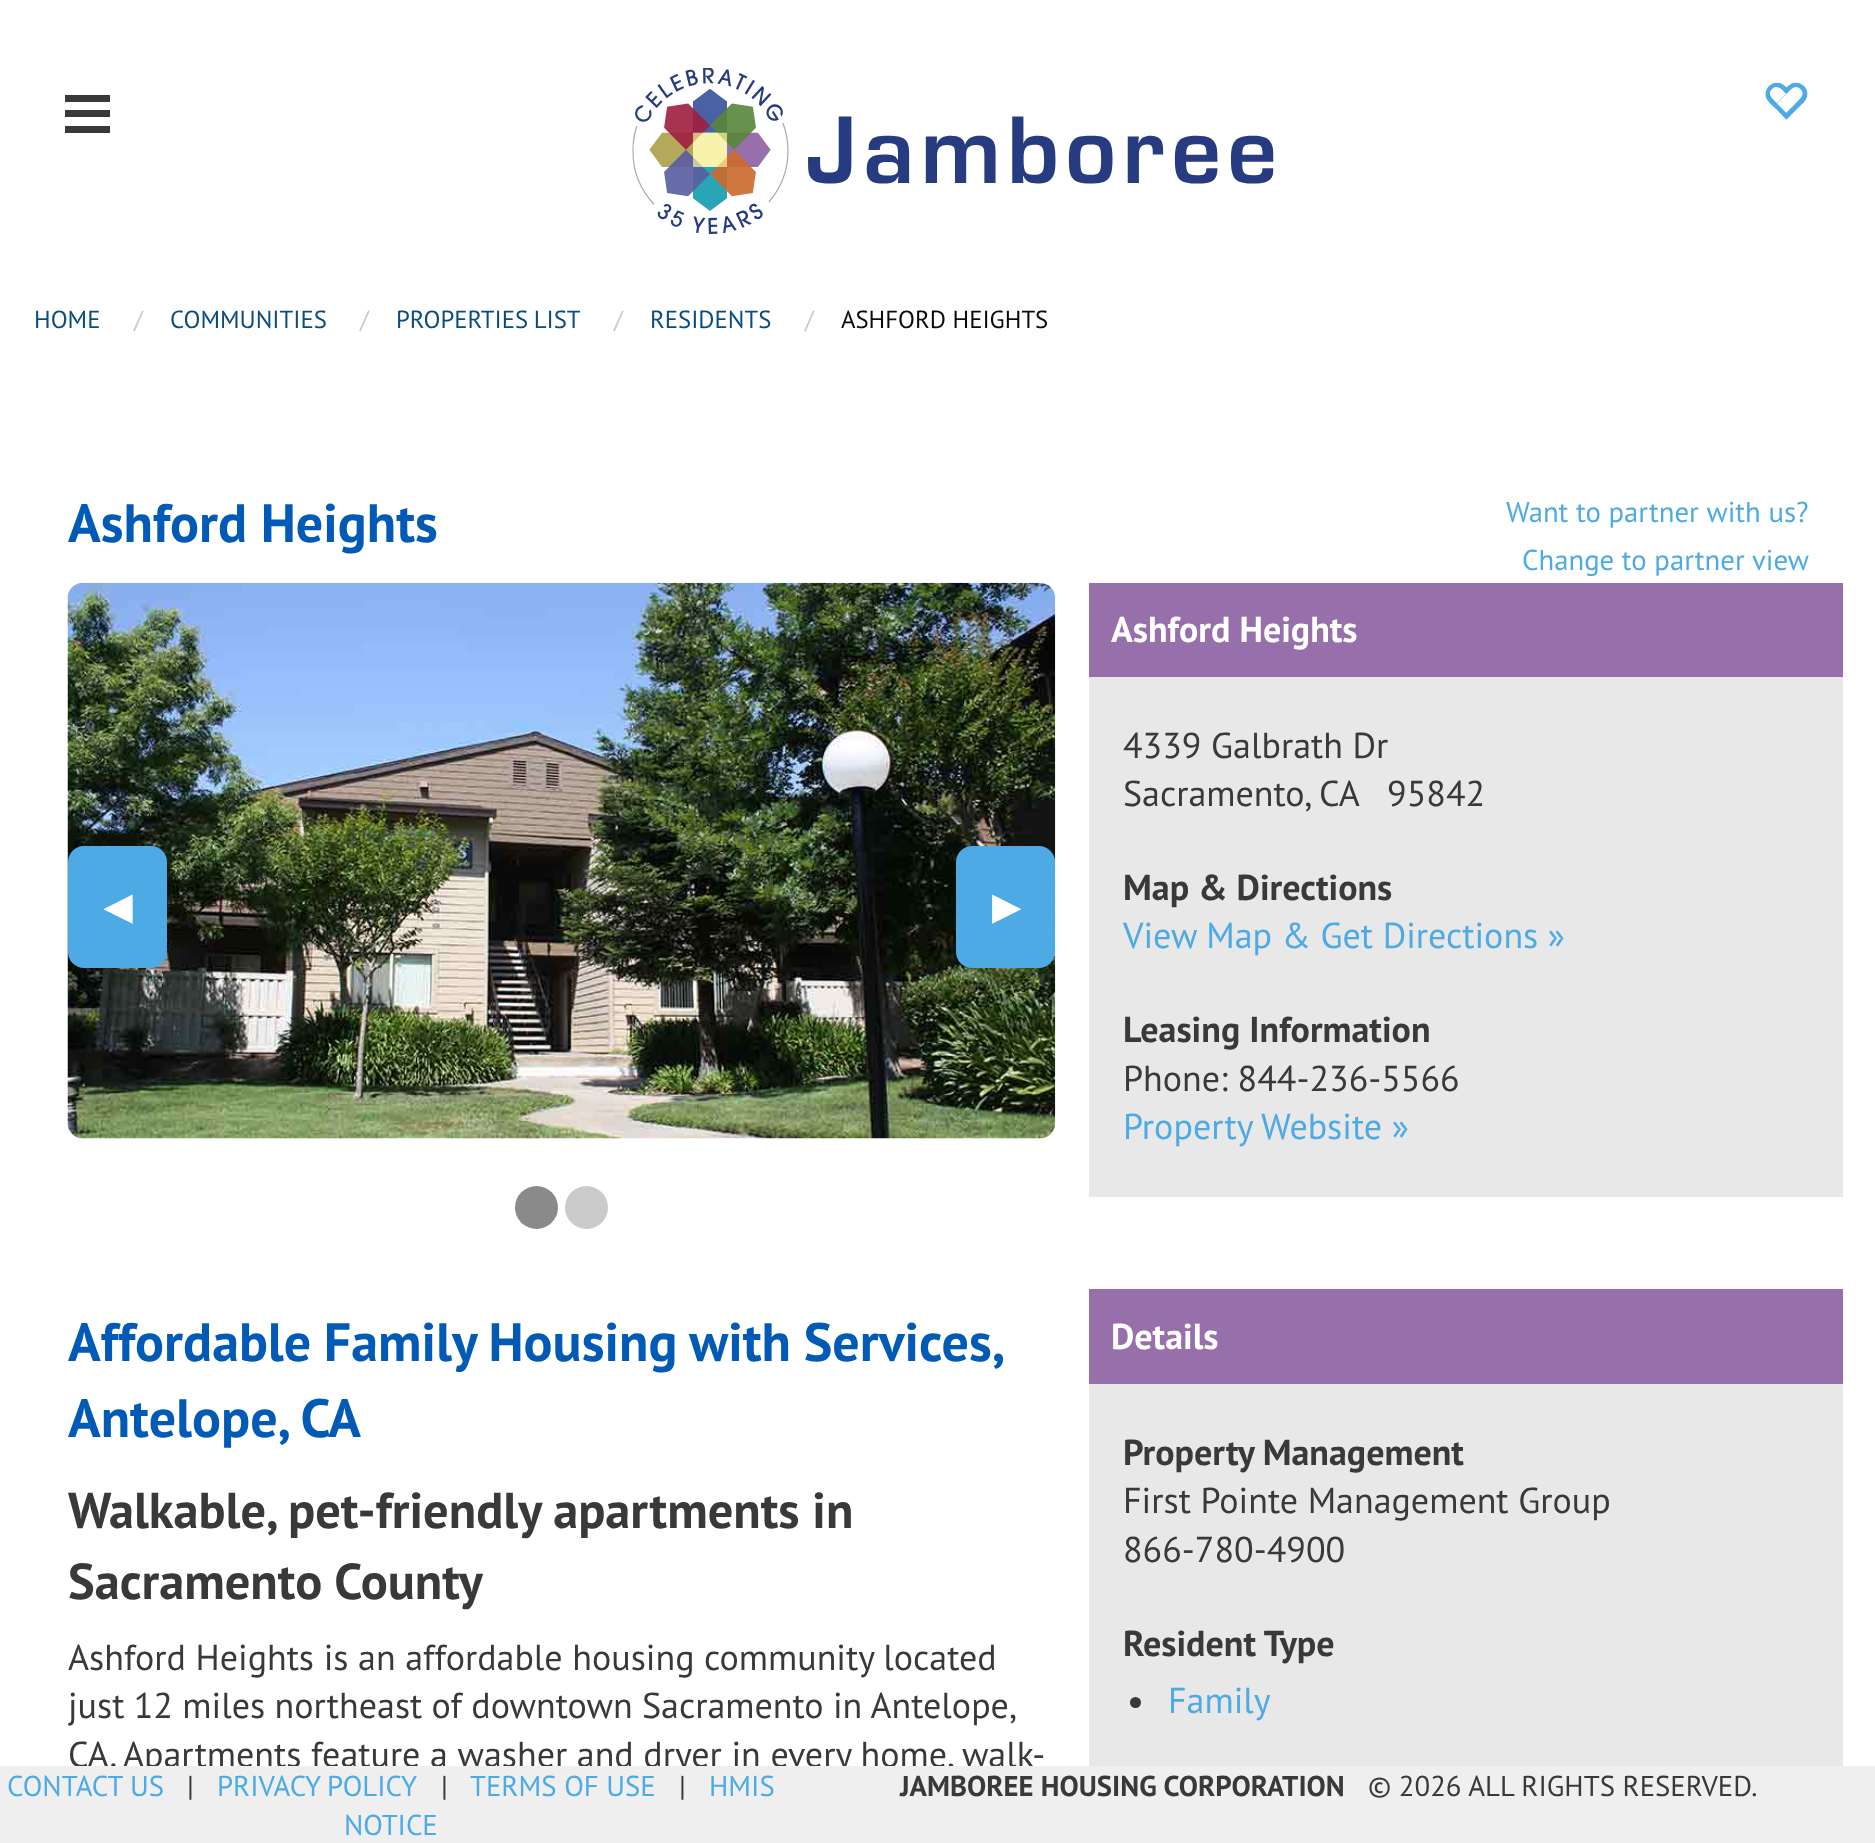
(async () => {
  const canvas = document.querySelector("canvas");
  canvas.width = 1875;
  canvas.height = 1843;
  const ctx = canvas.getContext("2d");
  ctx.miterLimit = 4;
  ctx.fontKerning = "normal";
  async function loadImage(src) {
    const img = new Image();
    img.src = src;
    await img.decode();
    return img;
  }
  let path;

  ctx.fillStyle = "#ffffff";
  ctx.fillRect(0, 0, 1875, 1843);
  for (const [x, y, w, h, color] of [
    [65, 126, 45, 7, "#393939"],
    [65, 110, 45, 7, "#393939"],
    [65, 95, 45, 7, "#393939"],
  ]) {
    ctx.fillStyle = color;
    ctx.fillRect(x, y, w, h);
  }
  ctx.drawImage(await loadImage("img/1.png"), 632, 68, 642, 166);
  ctx.fillStyle = "#4daae4";
  path = new Path2D("M1769 86C1773.5 81.5 1780.5 81.5 1785 86L1789.5 90.5L1773.5 106.5L1769 102C1764.5 97.5 1764.5 90.5 1769 86ZM1772 89C1777.5 83.5 1782.5 90 1786.5 94L1777 103.5C1773 99.5 1766.5 94.5 1772 89Z");
  ctx.fill(path, "evenodd");
  path = new Path2D("M1783 116L1800.5 98.5L1804 102L1786.5 119.5Z");
  ctx.fill(path);
  path = new Path2D("M1769 102L1772 98.5L1789.5 116L1786.5 119.5Z");
  ctx.fill(path);
  path = new Path2D("M1804 86C1808.5 90.5 1808.5 97.5 1804 102L1799 106.5L1783 90.5L1788 86C1792.5 81.5 1799.5 81.5 1804 86ZM1800.5 89C1806 94.5 1799.5 99.5 1796 103.5L1786.5 94C1790 90 1795 83.5 1800.5 89Z");
  ctx.fill(path, "evenodd");
  ctx.drawImage(await loadImage("img/2.png"), 67, 582, 989, 557);
  ctx.beginPath();
  ctx.roundRect(68, 846, 99, 122, 16);
  ctx.fill();
  ctx.beginPath();
  ctx.roundRect(956, 846, 99, 122, 16);
  ctx.fill();
  ctx.fillStyle = "#8a8a8a";
  ctx.beginPath();
  ctx.arc(536.5, 1207.5, 21.5, 0, Math.PI * 2);
  ctx.fill();
  ctx.fillStyle = "#cacaca";
  ctx.beginPath();
  ctx.arc(586.5, 1207.5, 21.5, 0, Math.PI * 2);
  ctx.fill();
  for (const [x, y, w, h, color] of [
    [1089, 677, 754, 1089, "#e8e8e8"],
    [1089, 583, 754, 94, "#966fab"],
    [1089, 1197, 754, 92, "#ffffff"],
    [1089, 1289, 754, 95, "#966fab"],
  ]) {
    ctx.fillStyle = color;
    ctx.fillRect(x, y, w, h);
  }
  ctx.fillStyle = "#393939";
  ctx.beginPath();
  ctx.arc(1135.5, 1702.5, 5.5, 0, Math.PI * 2);
  ctx.fill();
  ctx.fillStyle = "#efefef";
  ctx.fillRect(0, 1766, 1875, 77);
  ctx.font = "24.75px PT Sans";
  ctx.fillStyle = "#094c80";
  ctx.fillText("HOME", 34, 328);
  ctx.fillStyle = "#cacaca";
  ctx.fillText("/", 134, 328);
  ctx.fillStyle = "#094c80";
  ctx.fillText("COMMUNITIES", 170, 328);
  ctx.fillStyle = "#cacaca";
  ctx.fillText("/", 360, 328);
  ctx.wordSpacing = "-1px";
  ctx.fillStyle = "#094c80";
  ctx.fillText("PROPERTIES LIST", 396, 328);
  ctx.wordSpacing = "0px";
  ctx.fillStyle = "#cacaca";
  ctx.fillText("/", 614, 328);
  ctx.fillStyle = "#094c80";
  ctx.fillText("RESIDENTS", 650, 328);
  ctx.fillStyle = "#cacaca";
  ctx.fillText("/", 805, 328);
  ctx.fillStyle = "#0a0a0a";
  ctx.fillText("ASHFORD HEIGHTS", 841, 328);
  ctx.font = "bold 54px PT Sans";
  ctx.fillStyle = "#015bb6";
  ctx.fillText("Ashford Heights", 68, 542);
  ctx.font = "28.75px PT Sans";
  ctx.fillStyle = "#4daae4";
  ctx.fillText("Want to partner with us?", 1506, 522);
  ctx.fillText("Change to partner view", 1522, 570);
  ctx.font = "bold 36px DejaVu Sans";
  ctx.fillStyle = "#ffffff";
  ctx.fillText("◀︎", 104, 919);
  ctx.fillText("▶︎", 992, 919);
  ctx.wordSpacing = "-1px";
  ctx.font = "bold 54px PT Sans";
  ctx.fillStyle = "#015bb6";
  ctx.fillText("Affordable Family Housing with Services,", 68, 1361);
  ctx.wordSpacing = "0px";
  ctx.fillText("Antelope, CA", 68, 1437);
  ctx.font = "bold 50.4px PT Sans";
  ctx.fillStyle = "#393939";
  ctx.fillText("Walkable, pet-friendly apartments in", 68, 1528);
  ctx.fillText("Sacramento County", 68, 1599);
  ctx.font = "36px PT Sans";
  ctx.fillText("Ashford Heights is an affordable housing community located", 68, 1670);
  ctx.wordSpacing = "-0.25px";
  ctx.fillText("just 12 miles northeast of downtown Sacramento in Antelope,", 68, 1718);
  ctx.save();
  ctx.beginPath();
  ctx.rect(0, 302, 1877, 1464);
  ctx.clip();
  ctx.wordSpacing = "0px";
  ctx.fillText("CA. Apartments feature a washer and dryer in every home, walk-", 68, 1767);
  ctx.restore();
  ctx.wordSpacing = "0px";
  ctx.font = "bold 36px PT Sans";
  ctx.fillStyle = "#ffffff";
  ctx.fillText("Ashford Heights", 1111, 642);
  ctx.font = "36px PT Sans";
  ctx.fillStyle = "#393939";
  ctx.fillText("4339 Galbrath Dr", 1123, 758);
  ctx.fillText("Sacramento, CA   95842", 1123, 806);
  ctx.font = "bold 36px PT Sans";
  ctx.fillText("Map & Directions", 1123, 900);
  ctx.font = "36px PT Sans";
  ctx.fillStyle = "#4daae4";
  ctx.fillText("View Map & Get Directions »", 1123, 948);
  ctx.font = "bold 36px PT Sans";
  ctx.fillStyle = "#393939";
  ctx.fillText("Leasing Information", 1123, 1042);
  ctx.font = "36px PT Sans";
  ctx.fillText("Phone: 844-236-5566", 1123, 1091);
  ctx.fillStyle = "#4daae4";
  ctx.fillText("Property Website »", 1123, 1139);
  ctx.font = "bold 36px PT Sans";
  ctx.fillStyle = "#ffffff";
  ctx.fillText("Details", 1111, 1349);
  ctx.fillStyle = "#393939";
  ctx.fillText("Property Management", 1123, 1465);
  ctx.font = "36px PT Sans";
  ctx.fillText("First Pointe Management Group", 1123, 1513);
  ctx.fillText("866-780-4900", 1123, 1562);
  ctx.font = "bold 36px PT Sans";
  ctx.fillText("Resident Type", 1123, 1656);
  ctx.font = "36px PT Sans";
  ctx.fillStyle = "#4daae4";
  ctx.fillText("Family", 1168, 1713);
  ctx.font = "28.75px PT Sans";
  ctx.fillText("CONTACT US", 7, 1796);
  ctx.fillStyle = "#393939";
  ctx.fillText("|", 187, 1796);
  ctx.wordSpacing = "-1px";
  ctx.fillStyle = "#4daae4";
  ctx.fillText("PRIVACY POLICY", 217, 1796);
  ctx.wordSpacing = "0px";
  ctx.fillStyle = "#393939";
  ctx.fillText("|", 441, 1796);
  ctx.fillStyle = "#4daae4";
  ctx.fillText("TERMS OF USE", 470, 1796);
  ctx.fillStyle = "#393939";
  ctx.fillText("|", 679, 1796);
  ctx.fillStyle = "#4daae4";
  ctx.fillText("HMIS", 709, 1796);
  ctx.fillText("NOTICE", 344, 1835);
  ctx.font = "bold 28.75px PT Sans";
  ctx.fillStyle = "#393939";
  ctx.fillText("JAMBOREE HOUSING CORPORATION", 900, 1796);
  ctx.font = "28.75px PT Sans";
  ctx.fillText("© 2026 ALL RIGHTS RESERVED.", 1368, 1796);
})();
